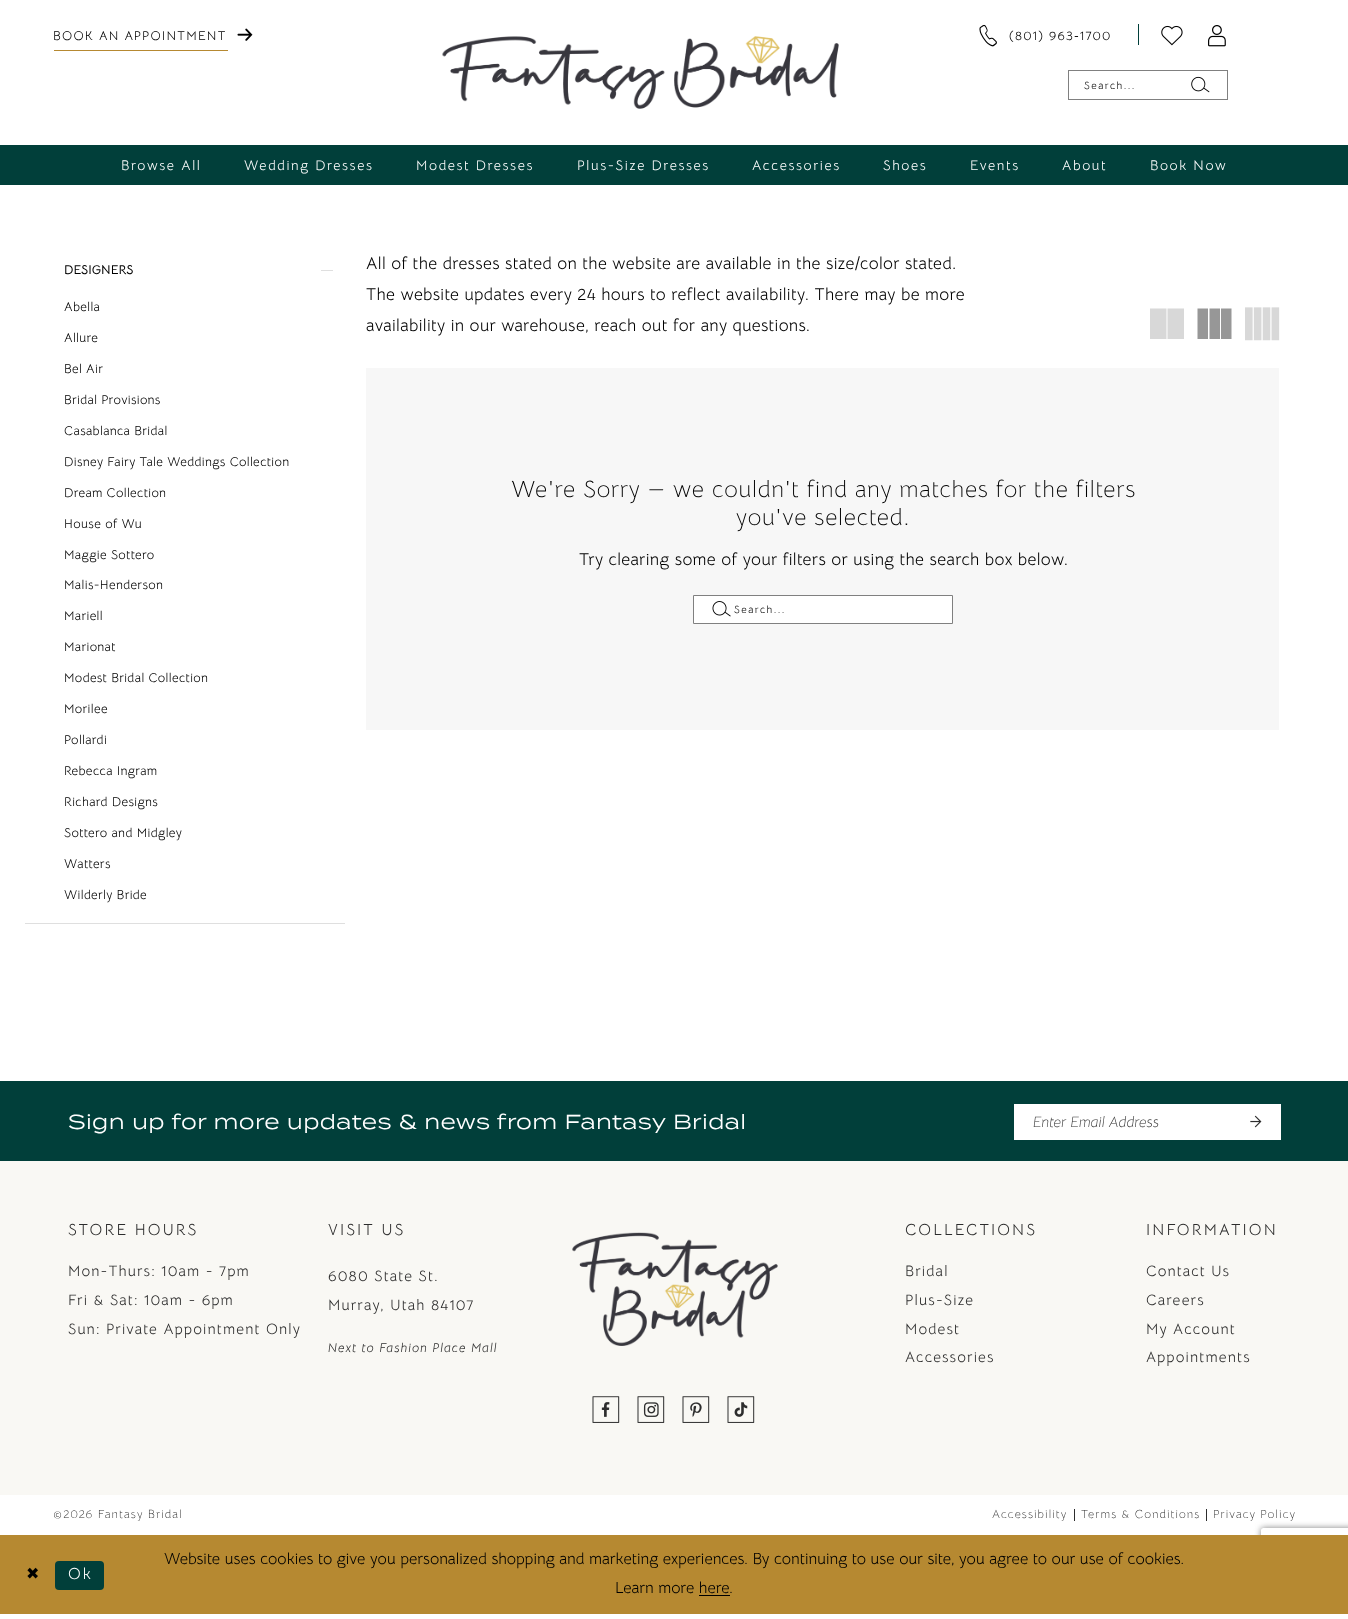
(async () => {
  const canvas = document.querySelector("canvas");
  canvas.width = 1348;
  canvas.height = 1619;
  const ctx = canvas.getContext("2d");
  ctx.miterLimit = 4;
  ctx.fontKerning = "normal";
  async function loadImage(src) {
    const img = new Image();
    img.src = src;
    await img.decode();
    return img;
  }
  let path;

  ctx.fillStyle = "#ffffff";
  ctx.fillRect(0, 0, 1348, 1619);
  ctx.fillStyle = "#b68931";
  ctx.fillRect(54, 50, 174, 1);
  ctx.drawImage(await loadImage("img/1.png"), 237, 28, 16, 13);
  ctx.drawImage(await loadImage("img/2.png"), 442, 36, 397, 73);
  ctx.drawImage(await loadImage("img/3.png"), 979, 24, 18, 23);
  ctx.fillStyle = "#013f3a";
  ctx.fillRect(1138, 24, 1, 21);
  ctx.drawImage(await loadImage("img/4.png"), 1161, 25, 22, 21);
  ctx.drawImage(await loadImage("img/5.png"), 1208, 25, 18, 22);
  ctx.strokeStyle = "#808080";
  ctx.strokeRect(1068.5, 70.5, 159, 29);
  ctx.drawImage(await loadImage("img/6.png"), 1191, 76, 19, 17);
  for (const [x, y, w, h, color] of [
    [0, 145, 1348, 40, "#013f3a"],
    [25, 923, 320, 1, "#dfdfdf"],
    [321, 270, 12, 1, "#dfdfdf"],
  ]) {
    ctx.fillStyle = color;
    ctx.fillRect(x, y, w, h);
  }
  ctx.fillStyle = "#d8d8d8";
  path = new Path2D("M1150 308.5H1166.5V339H1150ZM1167.5 308.5H1184V339H1167.5Z");
  ctx.fill(path);
  ctx.fillStyle = "#979797";
  path = new Path2D("M1197.5 308.5H1208V339H1197.5ZM1221 308.5H1231.5V339H1221ZM1209.5 308.5H1220V339H1209.5Z");
  ctx.fill(path);
  ctx.drawImage(await loadImage("img/7.png"), 1245, 307, 35, 34);
  ctx.fillStyle = "#f7f7f7";
  ctx.fillRect(366, 368, 913, 362);
  ctx.fillStyle = "#ffffff";
  ctx.beginPath();
  ctx.rect(693.5, 595.5, 259, 28);
  ctx.fill();
  ctx.stroke();
  ctx.drawImage(await loadImage("img/8.png"), 712, 601, 19, 16);
  ctx.fillStyle = "#013f3a";
  ctx.fillRect(0, 1081, 1348, 80);
  ctx.fillStyle = "#ffffff";
  ctx.fillRect(1014, 1104, 267, 36);
  ctx.drawImage(await loadImage("img/9.png"), 1250, 1115, 12, 13);
  ctx.fillStyle = "#f9f8f4";
  ctx.fillRect(0, 1161, 1348, 334);
  ctx.drawImage(await loadImage("img/10.png"), 572, 1232, 206, 114);
  ctx.drawImage(await loadImage("img/11.png"), 592, 1396, 28, 27);
  ctx.drawImage(await loadImage("img/12.png"), 637, 1396, 28, 27);
  ctx.drawImage(await loadImage("img/13.png"), 682, 1396, 28, 27);
  ctx.drawImage(await loadImage("img/14.png"), 727, 1396, 28, 27);
  ctx.fillStyle = "#2d2d2d";
  ctx.fillRect(1074, 1509, 1, 12);
  ctx.fillRect(1206, 1509, 1, 12);
  ctx.save();
  path = new Path2D("M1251 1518H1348V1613H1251ZM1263.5 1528H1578.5C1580 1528 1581 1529 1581 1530.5V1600.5C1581 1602 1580 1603 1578.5 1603H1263.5C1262 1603 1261 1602 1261 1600.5V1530.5C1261 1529 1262 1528 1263.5 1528Z");
  ctx.clip(path, "evenodd");
  ctx.fillStyle = "#808080";
  ctx.filter = "blur(3px)";
  ctx.beginPath();
  ctx.roundRect(1261, 1528, 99, 75, 2.5);
  ctx.fill();
  ctx.filter = "none";
  ctx.restore();
  ctx.fillStyle = "#b68931";
  ctx.fillRect(0, 1535, 1348, 79);
  ctx.fillStyle = "#013f3a";
  ctx.beginPath();
  ctx.roundRect(55, 1561, 49, 29, 4);
  ctx.fill();
  ctx.fillStyle = "#000000";
  ctx.fillRect(699, 1595, 31, 1);
  ctx.letterSpacing = "1.25px";
  ctx.font = "12.8px Bellota Text";
  ctx.fillText("BOOK AN APPOINTMENT", 53, 40);
  ctx.fillText("(801) 963‑1700", 1009, 40);
  ctx.letterSpacing = "1.5px";
  ctx.font = "10.5px Bellota Text";
  ctx.fillText("Search...", 1084, 89);
  ctx.letterSpacing = "1.6px";
  ctx.font = "13.9px Bellota Text";
  ctx.fillStyle = "#ffffff";
  for (const [text, x, y] of [
    ["Browse All", 121, 170],
    ["Wedding Dresses", 244, 170],
    ["Modest Dresses", 416, 170],
    ["Plus-Size Dresses", 577, 170],
    ["Accessories", 752, 170],
    ["Shoes", 883, 170],
    ["Events", 970, 170],
    ["About", 1062, 170],
    ["Book Now", 1150, 170],
  ]) {
    ctx.fillText(text, x, y);
  }
  ctx.letterSpacing = "0px";
  ctx.font = "bold 12.8px Bellota Text";
  ctx.fillStyle = "#000000";
  ctx.fillText("DESIGNERS", 64, 274);
  ctx.letterSpacing = "0.35px";
  ctx.font = "12.8px Bellota Text";
  for (const [text, x, y] of [
    ["Abella", 64, 311],
    ["Allure", 64, 342],
    ["Bel Air", 64, 373],
    ["Bridal Provisions", 64, 404],
    ["Casablanca Bridal", 64, 435],
    ["Disney Fairy Tale Weddings Collection", 64, 466],
    ["Dream Collection", 64, 497],
    ["House of Wu", 64, 528],
    ["Maggie Sottero", 64, 559],
    ["Malis-Henderson", 64, 589],
    ["Mariell", 64, 620],
    ["Marionat", 64, 651],
    ["Modest Bridal Collection", 64, 682],
    ["Morilee", 64, 713],
    ["Pollardi", 64, 744],
    ["Rebecca Ingram", 64, 775],
    ["Richard Designs", 64, 806],
    ["Sottero and Midgley", 64, 837],
    ["Watters", 64, 868],
    ["Wilderly Bride", 64, 899],
  ]) {
    ctx.fillText(text, x, y);
  }
  ctx.font = "17.1px Bellota Text";
  for (const [text, x, y] of [
    ["All of the dresses stated on the website are available in the size/color stated.", 366, 269],
    ["The website updates every 24 hours to reflect availability. There may be more", 366, 300],
    ["availability in our warehouse, reach out for any questions.", 366, 331],
  ]) {
    ctx.fillText(text, x, y);
  }
  ctx.letterSpacing = "0.75px";
  ctx.font = "300 23.5px Bellota Text";
  ctx.fillText("We're Sorry — we couldn't find any matches for the filters", 511, 497);
  ctx.fillText("you've selected.", 736, 525);
  ctx.letterSpacing = "0.35px";
  ctx.font = "17.1px Bellota Text";
  ctx.fillText("Try clearing some of your filters or using the search box below.", 579, 565);
  ctx.letterSpacing = "1.5px";
  ctx.font = "10.5px Bellota Text";
  ctx.fillText("Search...", 734, 613);
  ctx.letterSpacing = "0.4px";
  ctx.font = "20.3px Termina";
  ctx.fillStyle = "#ffffff";
  ctx.fillText("Sign up for more updates & news from Fantasy Bridal", 68, 1129);
  ctx.letterSpacing = "0px";
  ctx.font = "italic 300 15px Bellota Text";
  ctx.fillStyle = "#2d2d2d";
  ctx.fillText("Enter Email Address", 1033, 1127);
  ctx.letterSpacing = "2.1px";
  ctx.font = "16px Bellota Text";
  ctx.fillText("STORE HOURS", 68, 1235);
  ctx.letterSpacing = "1.15px";
  ctx.font = "15px Bellota Text";
  for (const [text, x, y] of [
    ["Mon-Thurs: 10am - 7pm", 68, 1276],
    ["Fri & Sat: 10am - 6pm", 68, 1305],
    ["Sun: Private Appointment Only", 68, 1334],
  ]) {
    ctx.fillText(text, x, y);
  }
  ctx.letterSpacing = "2.1px";
  ctx.font = "16px Bellota Text";
  ctx.fillText("VISIT US", 328, 1235);
  ctx.letterSpacing = "1.15px";
  ctx.font = "15px Bellota Text";
  ctx.fillText("6080 State St.", 328, 1281);
  ctx.fillText("Murray, Utah 84107", 328, 1310);
  ctx.letterSpacing = "1px";
  ctx.font = "italic 12.8px Bellota Text";
  ctx.fillText("Next to Fashion Place Mall", 328, 1352);
  ctx.letterSpacing = "2.1px";
  ctx.font = "16px Bellota Text";
  ctx.fillText("COLLECTIONS", 905, 1235);
  ctx.letterSpacing = "1.15px";
  ctx.font = "15px Bellota Text";
  for (const [text, x, y] of [
    ["Bridal", 905, 1276],
    ["Plus-Size", 905, 1305],
    ["Modest", 905, 1334],
    ["Accessories", 905, 1362],
  ]) {
    ctx.fillText(text, x, y);
  }
  ctx.letterSpacing = "2.1px";
  ctx.font = "16px Bellota Text";
  ctx.fillText("INFORMATION", 1146, 1235);
  ctx.letterSpacing = "1.15px";
  ctx.font = "15px Bellota Text";
  for (const [text, x, y] of [
    ["Contact Us", 1146, 1276],
    ["Careers", 1146, 1305],
    ["My Account", 1146, 1334],
    ["Appointments", 1146, 1362],
  ]) {
    ctx.fillText(text, x, y);
  }
  ctx.letterSpacing = "1.1px";
  ctx.font = "300 11.75px Bellota Text";
  for (const [text, x, y] of [
    ["©2026 Fantasy Bridal", 53, 1518],
    ["Accessibility", 992, 1518],
    ["Terms & Conditions", 1081, 1518],
    ["Privacy Policy", 1213, 1518],
  ]) {
    ctx.fillText(text, x, y);
  }
  ctx.letterSpacing = "2px";
  ctx.font = "16px DejaVu Sans";
  ctx.fillStyle = "#000000";
  ctx.fillText("✖", 26, 1579);
  ctx.font = "16px Bellota Text";
  ctx.fillStyle = "#ffffff";
  ctx.fillText("Ok", 68, 1579);
  ctx.letterSpacing = "0px";
  ctx.fillStyle = "#000000";
  for (const [text, x, y] of [
    ["Website uses cookies to give you personalized shopping and marketing experiences. By continuing to use our site, you agree to our use of cookies.", 164, 1564],
    ["Learn more here", 615, 1593],
    [".", 729, 1593],
  ]) {
    ctx.fillText(text, x, y);
  }
})();
